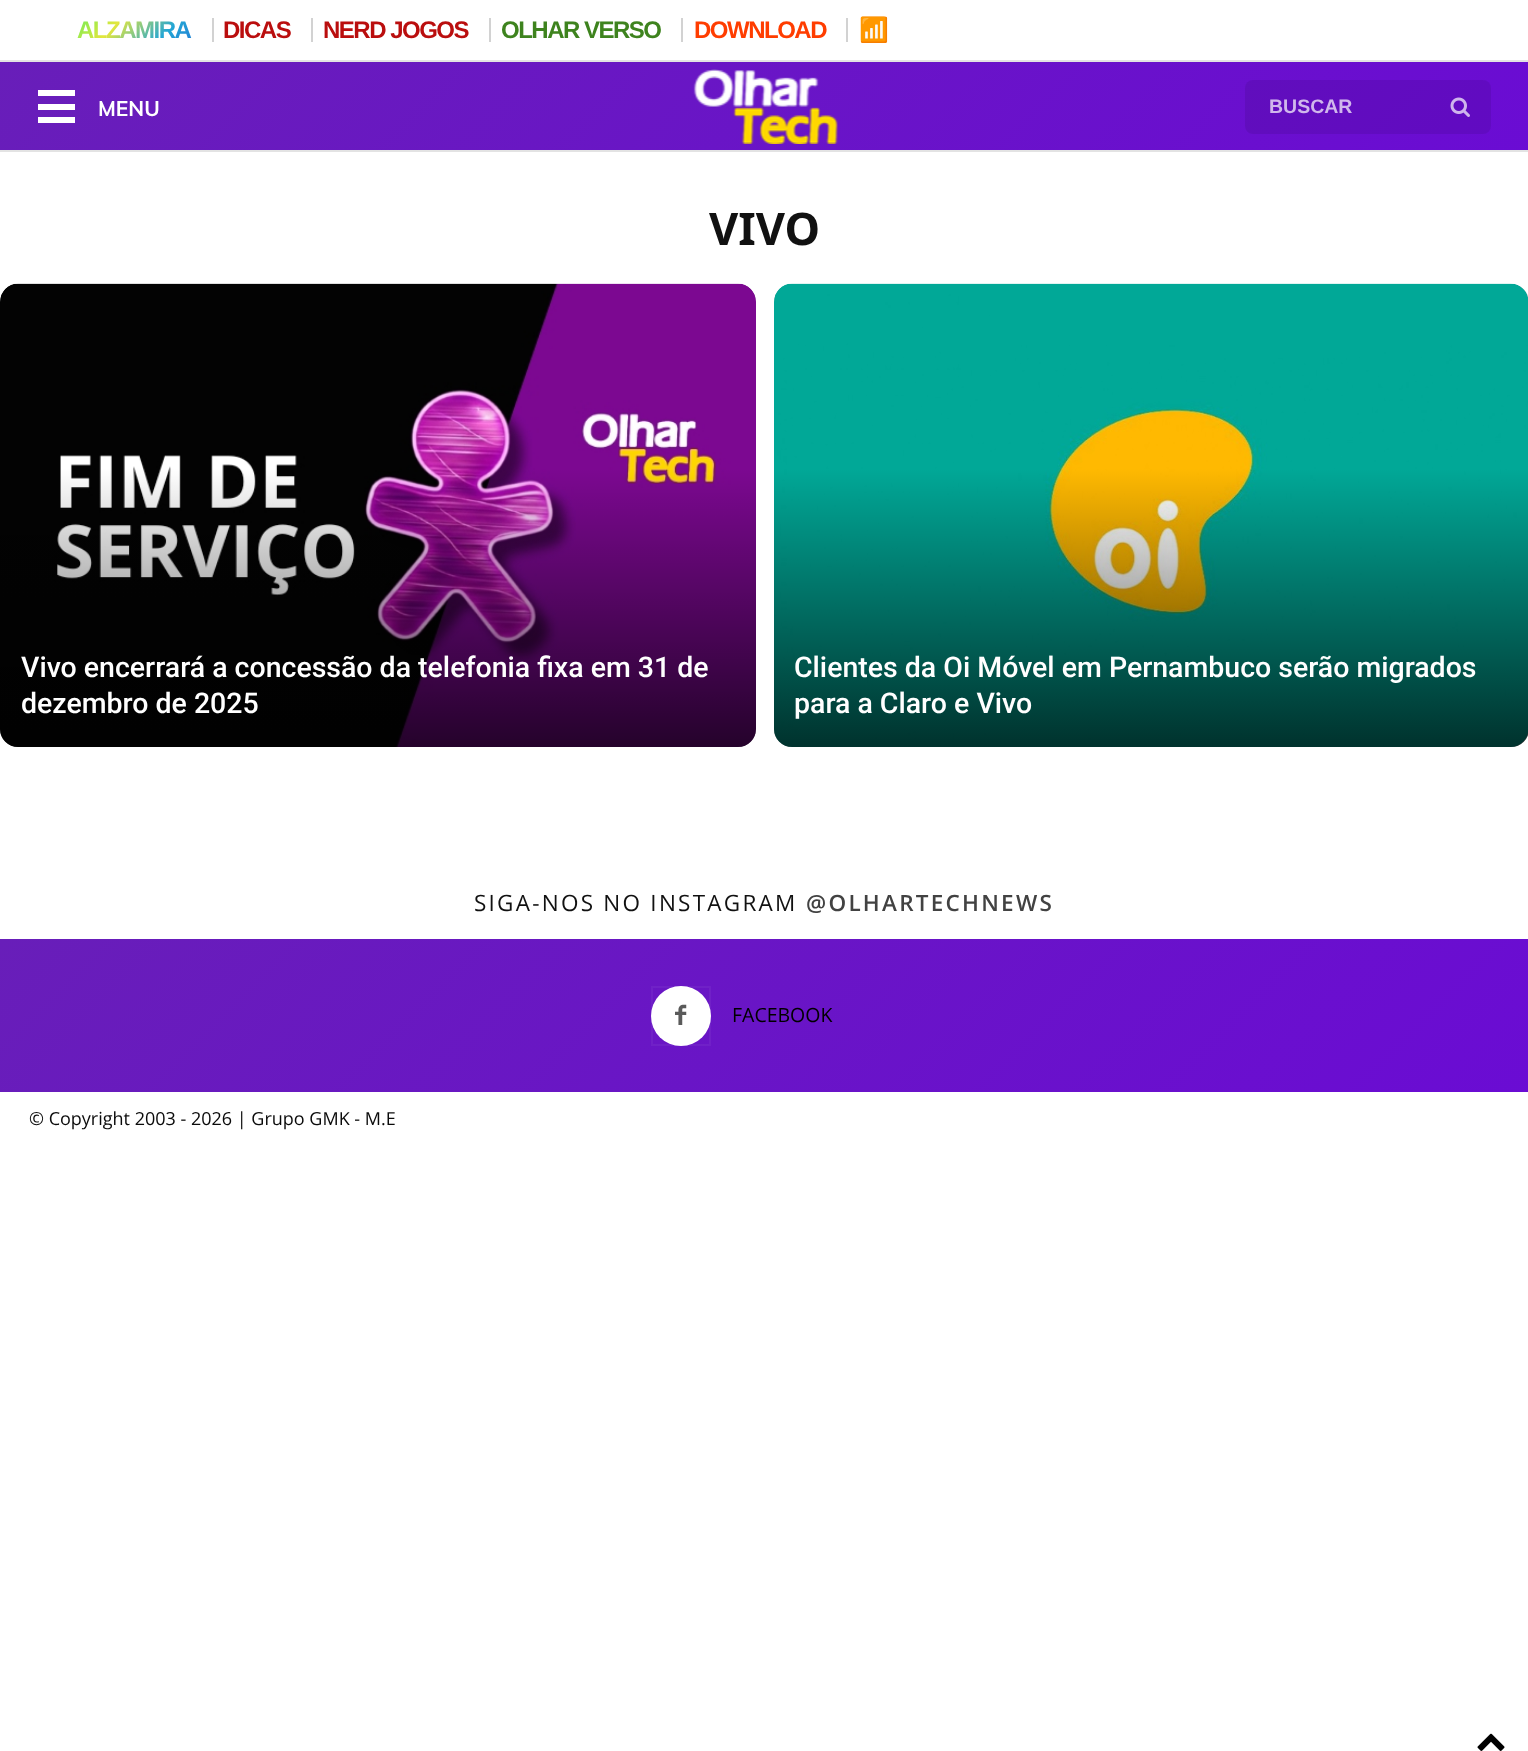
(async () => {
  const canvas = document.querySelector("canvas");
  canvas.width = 1528;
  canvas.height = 1751;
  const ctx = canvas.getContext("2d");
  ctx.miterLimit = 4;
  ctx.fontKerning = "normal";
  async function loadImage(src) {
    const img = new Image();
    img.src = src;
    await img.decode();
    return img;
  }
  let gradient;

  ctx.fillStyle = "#ffffff";
  ctx.fillRect(0, 0, 1528, 1751);
  for (const [x, y, w, h, color] of [
    [212, 18, 2, 24, "#d2d2d2"],
    [311, 18, 2, 24, "#d2d2d2"],
    [489, 18, 2, 24, "#d2d2d2"],
    [681, 18, 2, 24, "#d2d2d2"],
    [846, 18, 2, 24, "#d2d2d2"],
  ]) {
    ctx.fillStyle = color;
    ctx.fillRect(x, y, w, h);
  }
  gradient = ctx.createLinearGradient(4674, 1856, 1440, -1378);
  gradient.addColorStop(0, "#540ba3");
  gradient.addColorStop(0.33, "#993399");
  gradient.addColorStop(0.67, "#6b06dc");
  gradient.addColorStop(1, "#681eb9");
  ctx.fillStyle = gradient;
  ctx.fillRect(0, 62, 1528, 88);
  for (const [x, y, w, h, color] of [
    [0, 60, 1528, 2, "#e3e3e3"],
    [0, 150, 1528, 2, "#e3e3e3"],
    [38, 90, 37, 6, "#ffffff"],
    [38, 104, 37, 6, "#ffffff"],
    [38, 117, 37, 6, "#ffffff"],
  ]) {
    ctx.fillStyle = color;
    ctx.fillRect(x, y, w, h);
  }
  ctx.drawImage(await loadImage("img/1.png"), 693, 69, 145, 75);
  ctx.fillStyle = "rgba(0, 0, 0, 0.08)";
  ctx.beginPath();
  ctx.roundRect(1245, 80, 246, 54, 8);
  ctx.fill();
  ctx.drawImage(await loadImage("img/2.png"), 1450, 97, 20, 20);
  ctx.fillStyle = "#e5e5e5";
  ctx.beginPath();
  ctx.roundRect(0, 284, 756, 463, 18);
  ctx.fill();
  ctx.save();
  ctx.beginPath();
  ctx.roundRect(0, 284, 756, 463, 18);
  ctx.clip();
  ctx.fillStyle = "rgba(60, 64, 67, 0.15)";
  ctx.filter = "blur(2px)";
  ctx.beginPath();
  ctx.roundRect(-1, 284, 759, 466, 20);
  ctx.fill();
  ctx.filter = "none";
  ctx.fillStyle = "rgba(60, 64, 67, 0.3)";
  ctx.filter = "blur(1.5px)";
  ctx.beginPath();
  ctx.roundRect(0, 285, 756, 464, 18);
  ctx.fill();
  ctx.filter = "none";
  ctx.restore();
  ctx.drawImage(await loadImage("img/3.png"), 0, 283, 756, 464);
  gradient = ctx.createLinearGradient(378, 283, 378, 747);
  gradient.addColorStop(0.4, "rgba(0, 0, 0, 0)");
  gradient.addColorStop(1, "rgba(0, 0, 0, 0.7)");
  ctx.fillStyle = gradient;
  ctx.beginPath();
  ctx.roundRect(0, 284, 756, 463, 18);
  ctx.fill();
  ctx.fillStyle = "#e5e5e5";
  ctx.beginPath();
  ctx.roundRect(774, 284, 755, 463, 18);
  ctx.fill();
  ctx.save();
  ctx.beginPath();
  ctx.roundRect(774, 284, 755, 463, 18);
  ctx.clip();
  ctx.fillStyle = "rgba(60, 64, 67, 0.15)";
  ctx.filter = "blur(2px)";
  ctx.beginPath();
  ctx.roundRect(773, 284, 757, 466, 20);
  ctx.fill();
  ctx.filter = "none";
  ctx.fillStyle = "rgba(60, 64, 67, 0.3)";
  ctx.filter = "blur(1.5px)";
  ctx.beginPath();
  ctx.roundRect(774, 285, 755, 464, 18);
  ctx.fill();
  ctx.filter = "none";
  ctx.restore();
  ctx.drawImage(await loadImage("img/4.png"), 774, 283, 754, 464);
  gradient = ctx.createLinearGradient(1151, 283, 1151, 747);
  gradient.addColorStop(0.4, "rgba(0, 0, 0, 0)");
  gradient.addColorStop(1, "rgba(0, 0, 0, 0.7)");
  ctx.fillStyle = gradient;
  ctx.beginPath();
  ctx.roundRect(774, 284, 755, 463, 18);
  ctx.fill();
  gradient = ctx.createLinearGradient(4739, 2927, 1376, -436);
  gradient.addColorStop(0, "#540ba3");
  gradient.addColorStop(0.33, "#993399");
  gradient.addColorStop(0.67, "#6b06dc");
  gradient.addColorStop(1, "#681eb9");
  ctx.fillStyle = gradient;
  ctx.fillRect(0, 939, 1528, 153);
  ctx.fillStyle = "#ffffff";
  ctx.beginPath();
  ctx.arc(681, 1016, 30, 0, Math.PI * 2);
  ctx.fill();
  ctx.drawImage(await loadImage("img/5.png"), 675, 1004, 12, 21);
  ctx.strokeStyle = "rgba(255, 255, 255, 0.05)";
  ctx.lineWidth = 2;
  ctx.strokeRect(652, 987, 58, 58);
  ctx.drawImage(await loadImage("img/6.png"), 1477, 1733, 28, 18);
  ctx.letterSpacing = "-1.5px";
  ctx.font = "bold 24px Liberation Sans";
  gradient = ctx.createLinearGradient(97, -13, 182, 73);
  gradient.addColorStop(0, "#52ee5e");
  gradient.addColorStop(0.33, "#e4e73c");
  gradient.addColorStop(0.67, "#23a6d5");
  gradient.addColorStop(1, "#236ad5");
  ctx.fillStyle = gradient;
  ctx.fillText("ALZAMIRA", 77, 38);
  ctx.fillStyle = "#ba0e0e";
  ctx.fillText("DICAS", 223, 38);
  ctx.fillText("NERD JOGOS", 323, 38);
  ctx.fillStyle = "#3e831e";
  ctx.fillText("OLHAR VERSO", 501, 38);
  ctx.fillStyle = "#ff3d00";
  ctx.fillText("DOWNLOAD", 694, 38);
  ctx.font = "bold 24px Noto Color Emoji";
  ctx.fillStyle = "#005cef";
  ctx.fillText("📶", 859, 38);
  ctx.letterSpacing = "0px";
  ctx.font = "bold 21px Muli";
  ctx.fillStyle = "#ffffff";
  ctx.fillText("MENU", 98, 116);
  ctx.font = "bold 19.5px Liberation Sans";
  ctx.fillStyle = "#d0b7ec";
  ctx.fillText("BUSCAR", 1269, 113);
  ctx.font = "bold 45px Noto Sans";
  ctx.fillStyle = "#111111";
  ctx.fillText("VIVO", 709, 245);
  ctx.font = "500 28.5px Roboto";
  ctx.fillStyle = "#ffffff";
  for (const [text, x, y] of [
    ["Vivo encerrará a concessão da telefonia fixa em 31 de", 21, 677],
    ["dezembro de 2025", 21, 713],
    ["Clientes da Oi Móvel em Pernambuco serão migrados", 794, 677],
    ["para a Claro e Vivo", 794, 713],
  ]) {
    ctx.fillText(text, x, y);
  }
  ctx.letterSpacing = "2.25px";
  ctx.font = "22.5px Open Sans";
  ctx.fillStyle = "#111111";
  ctx.fillText("SIGA-NOS NO INSTAGRAM", 474, 911);
  ctx.font = "600 22.5px Open Sans";
  ctx.fillStyle = "#424242";
  ctx.fillText("@OLHARTECHNEWS", 806, 911);
  ctx.letterSpacing = "0px";
  ctx.font = "19.5px Open Sans";
  ctx.fillStyle = "#000000";
  ctx.fillText("FACEBOOK", 732, 1022);
  ctx.font = "18px Open Sans";
  ctx.fillStyle = "#0a0a0a";
  ctx.fillText("© Copyright 2003 - 2026 | Grupo GMK - M.E", 29, 1125);
})();
